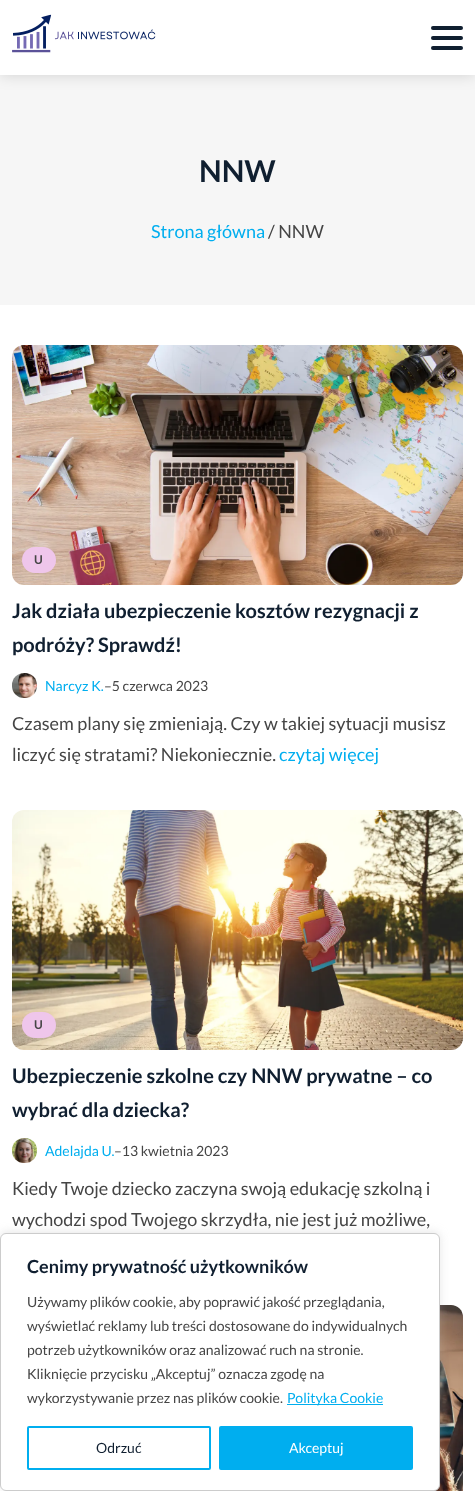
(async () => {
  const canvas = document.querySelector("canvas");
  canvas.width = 475;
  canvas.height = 1491;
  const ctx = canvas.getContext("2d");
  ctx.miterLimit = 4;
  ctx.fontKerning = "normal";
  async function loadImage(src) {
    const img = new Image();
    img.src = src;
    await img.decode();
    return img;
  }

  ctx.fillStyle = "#f6f6f6";
  ctx.fillRect(0, 0, 475, 1491);
  ctx.fillStyle = "rgba(0, 0, 0, 0.15)";
  ctx.filter = "blur(7.5px)";
  ctx.beginPath();
  ctx.rect(0, 0, 475, 75);
  ctx.fill();
  ctx.filter = "none";
  ctx.fillStyle = "#ffffff";
  ctx.fillRect(0, 0, 475, 75);
  ctx.drawImage(await loadImage("img/1.png"), 12, 14, 144, 39);
  ctx.fillStyle = "#101f30";
  ctx.beginPath();
  ctx.roundRect(431, 26, 32, 4, 2);
  ctx.fill();
  ctx.beginPath();
  ctx.roundRect(431, 36, 32, 4, 2);
  ctx.fill();
  ctx.beginPath();
  ctx.roundRect(431, 46, 32, 4, 2);
  ctx.fill();
  ctx.fillStyle = "#ffffff";
  ctx.fillRect(0, 305, 475, 1186);
  ctx.drawImage(await loadImage("img/2.png"), 12, 345, 451, 240);
  ctx.fillStyle = "#efc6eb";
  ctx.beginPath();
  ctx.roundRect(22, 547, 34, 26, 13);
  ctx.fill();
  ctx.drawImage(await loadImage("img/3.png"), 12, 673, 25, 25);
  ctx.drawImage(await loadImage("img/4.png"), 12, 810, 451, 240);
  ctx.beginPath();
  ctx.roundRect(22, 1012, 34, 26, 13);
  ctx.fill();
  ctx.drawImage(await loadImage("img/5.png"), 12, 1138, 25, 25);
  ctx.drawImage(await loadImage("img/6.png"), 434, 1305, 29, 186);
  ctx.fillStyle = "rgba(172, 171, 171, 0.3)";
  ctx.filter = "blur(5px)";
  ctx.beginPath();
  ctx.roundRect(0, 1232, 440, 258, 6);
  ctx.fill();
  ctx.filter = "none";
  ctx.fillStyle = "#ffffff";
  ctx.beginPath();
  ctx.roundRect(0.5, 1233.5, 439, 257, 5.5);
  ctx.fill();
  ctx.strokeStyle = "#cccccc";
  ctx.stroke();
  ctx.fillStyle = "#00aeef";
  ctx.fillRect(287, 1404, 96, 1);
  ctx.beginPath();
  ctx.roundRect(28, 1427, 182, 42, 1);
  ctx.strokeStyle = "#00aeef";
  ctx.lineWidth = 2;
  ctx.stroke();
  ctx.beginPath();
  ctx.roundRect(220, 1427, 192, 42, 1);
  ctx.fill();
  ctx.stroke();
  ctx.font = "bold 30px Lato";
  ctx.fillStyle = "#101f30";
  ctx.fillText("NNW", 199, 182);
  ctx.font = "18px Lato";
  ctx.fillStyle = "#00aeef";
  ctx.fillText("Strona główna", 151, 238);
  ctx.fillStyle = "#454545";
  ctx.fillText("/ NNW", 268, 238);
  ctx.letterSpacing = "1px";
  ctx.font = "bold 12px Lato";
  ctx.fillText("U", 34, 564);
  ctx.letterSpacing = "0px";
  ctx.font = "bold 20px Lato";
  ctx.fillStyle = "#101f30";
  ctx.fillText("Jak działa ubezpieczenie kosztów rezygnacji z", 12, 618);
  ctx.fillText("podróży? Sprawdź!", 12, 652);
  ctx.font = "14px Lato";
  ctx.fillStyle = "#00aeef";
  ctx.fillText("Narcyz K.", 45, 691);
  ctx.fillStyle = "#454545";
  ctx.fillText("–5 czerwca 2023", 104, 691);
  ctx.font = "18px Lato";
  ctx.fillText("Czasem plany się zmieniają. Czy w takiej sytuacji musisz", 12, 730);
  ctx.fillText("liczyć się stratami? Niekoniecznie.", 12, 761);
  ctx.fillStyle = "#00aeef";
  ctx.fillText("czytaj więcej", 279, 761);
  ctx.letterSpacing = "1px";
  ctx.font = "bold 12px Lato";
  ctx.fillStyle = "#454545";
  ctx.fillText("U", 34, 1029);
  ctx.letterSpacing = "0px";
  ctx.font = "bold 20px Lato";
  ctx.fillStyle = "#101f30";
  ctx.fillText("Ubezpieczenie szkolne czy NNW prywatne – co", 12, 1083);
  ctx.fillText("wybrać dla dziecka?", 12, 1117);
  ctx.font = "14px Lato";
  ctx.fillStyle = "#00aeef";
  ctx.fillText("Adelajda U.", 45, 1156);
  ctx.fillStyle = "#454545";
  ctx.fillText("–13 kwietnia 2023", 114, 1156);
  ctx.font = "18px Lato";
  ctx.fillText("Kiedy Twoje dziecko zaczyna swoją edukację szkolną i", 12, 1195);
  ctx.fillText("wychodzi spod Twojego skrzydła, nie jest już możliwe,", 12, 1226);
  ctx.font = "bold 18px Lato";
  ctx.fillStyle = "#101f30";
  ctx.fillText("Cenimy prywatność użytkowników", 27, 1273);
  ctx.font = "14px Lato";
  ctx.fillStyle = "#454545";
  for (const [text, x, y] of [
    ["Używamy plików cookie, aby poprawić jakość przeglądania,", 27, 1307],
    ["wyświetlać reklamy lub treści dostosowane do indywidualnych", 27, 1331],
    ["potrzeb użytkowników oraz analizować ruch na stronie.", 27, 1355],
    ["Kliknięcie przycisku „Akceptuj” oznacza zgodę na", 27, 1379],
    ["wykorzystywanie przez nas plików cookie.", 27, 1403],
  ]) {
    ctx.fillText(text, x, y);
  }
  ctx.fillStyle = "#00aeef";
  ctx.fillText("Polityka Cookie", 287, 1403);
  ctx.fillStyle = "#101f30";
  ctx.fillText("Odrzuć", 96, 1453);
  ctx.fillStyle = "#ffffff";
  ctx.fillText("Akceptuj", 289, 1453);
})();
